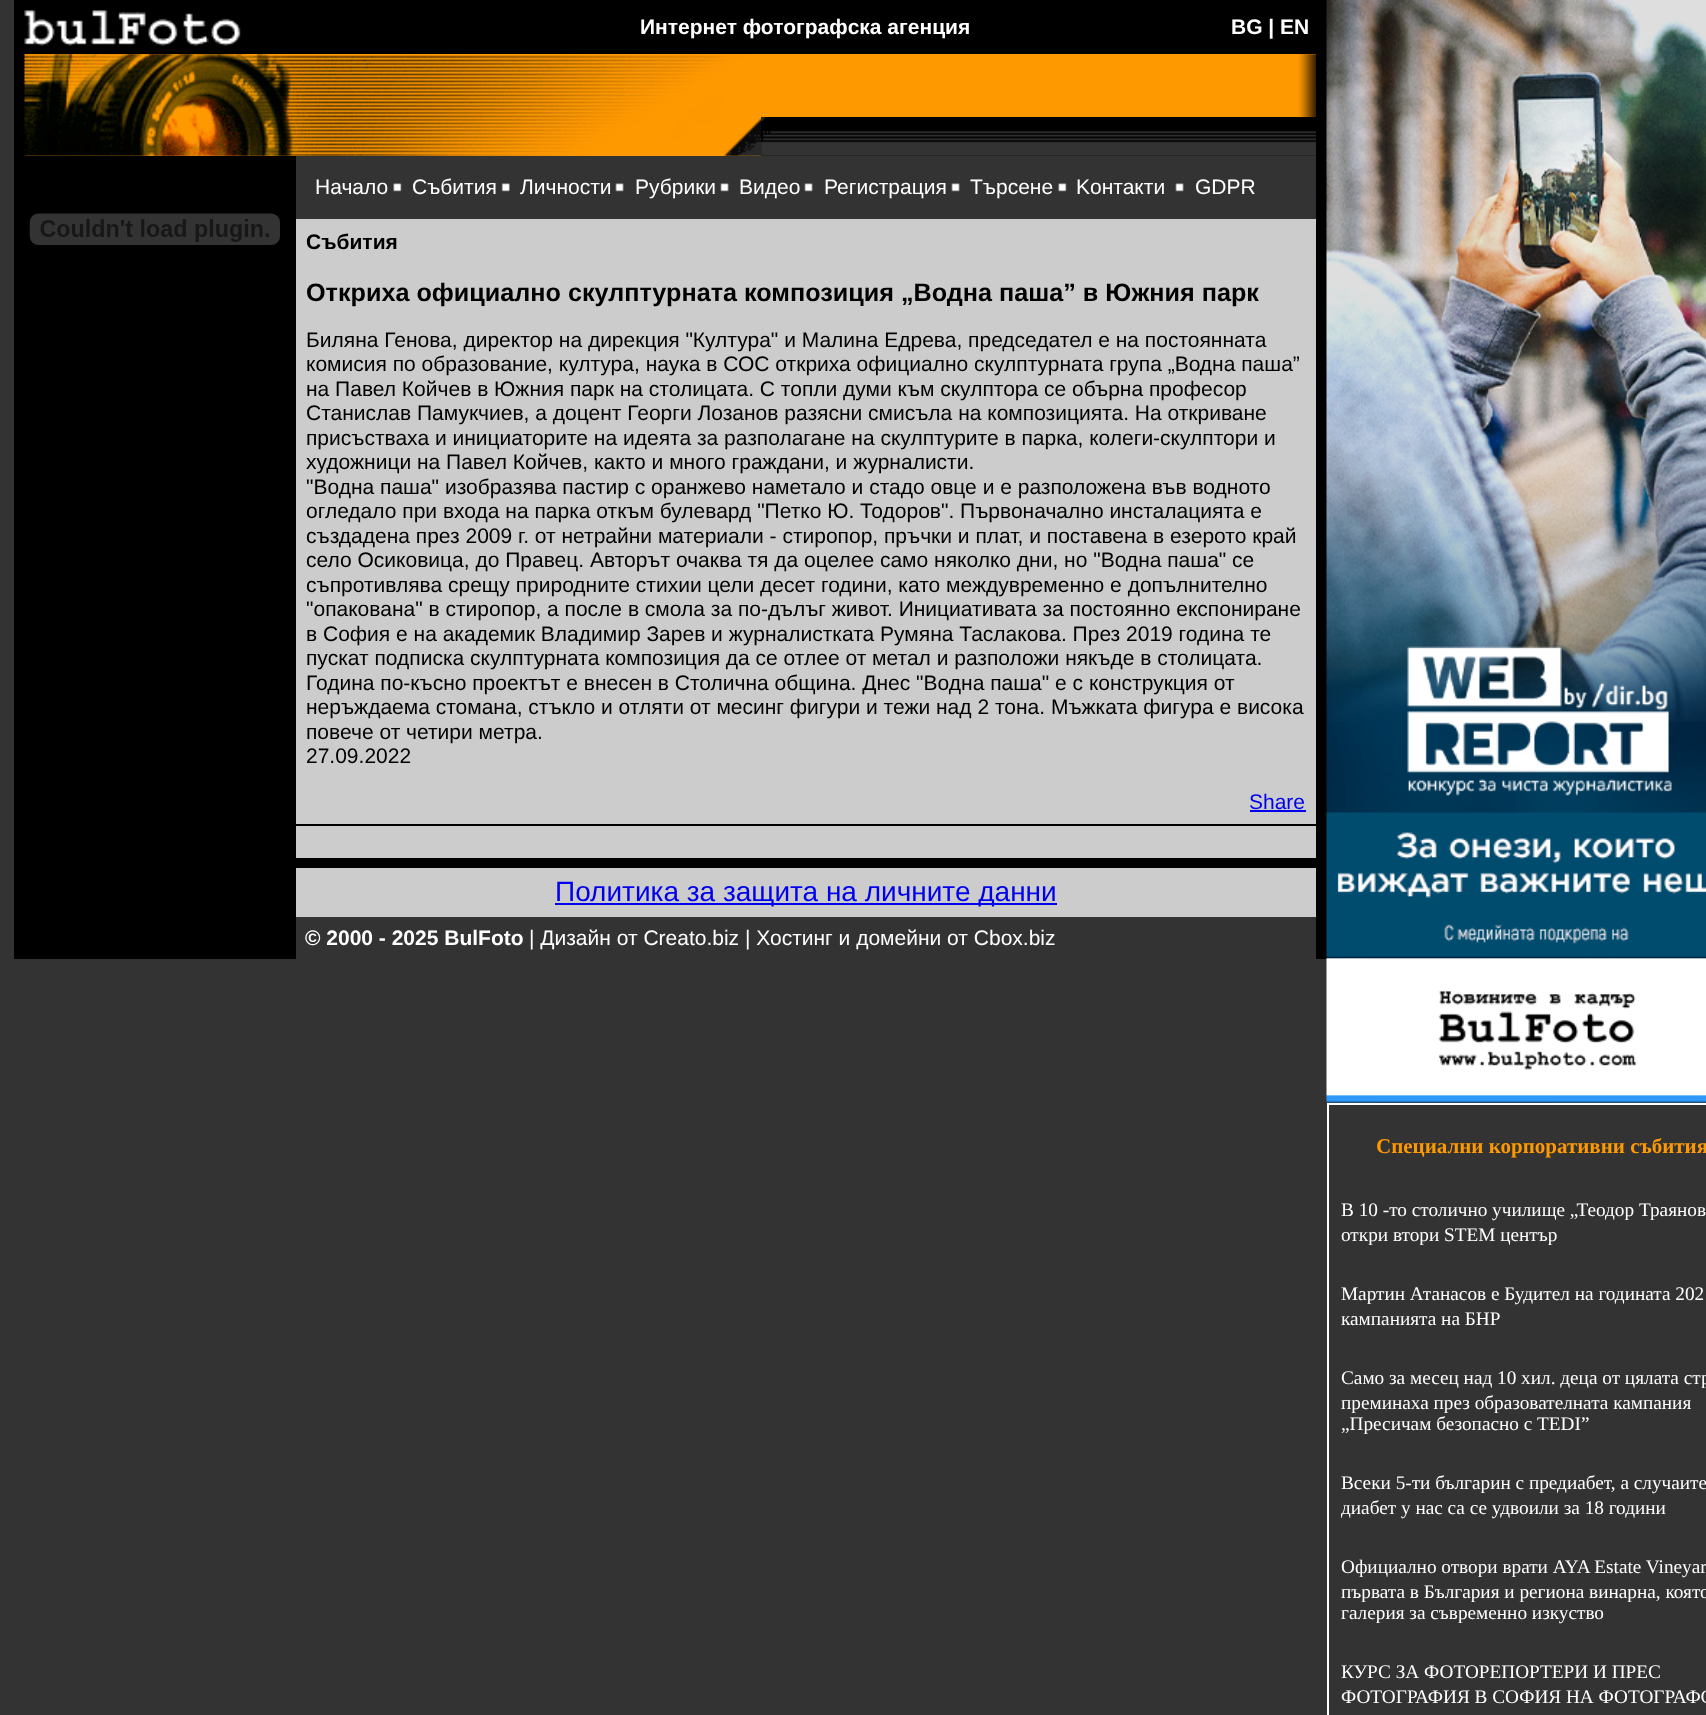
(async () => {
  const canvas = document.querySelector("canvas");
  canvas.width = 1706;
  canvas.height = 1715;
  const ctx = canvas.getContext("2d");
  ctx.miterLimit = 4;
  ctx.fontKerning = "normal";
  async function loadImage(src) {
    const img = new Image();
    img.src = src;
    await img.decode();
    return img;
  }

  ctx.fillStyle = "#333333";
  ctx.fillRect(0, 0, 1706, 1715);
  for (const [x, y, w, h, color] of [
    [14, 0, 1313, 54, "#000000"],
    [25, 54, 736, 102, "#ff9900"],
    [14, 54, 11, 102, "#000000"],
  ]) {
    ctx.fillStyle = color;
    ctx.fillRect(x, y, w, h);
  }
  ctx.drawImage(await loadImage("img/1.png"), 24, 10, 221, 45);
  ctx.drawImage(await loadImage("img/2.png"), 24, 54, 340, 102);
  ctx.fillRect(761, 117, 555, 39);
  ctx.fillStyle = "#ff9900";
  ctx.fillRect(761, 54, 555, 63);
  ctx.drawImage(await loadImage("img/3.png"), 364, 55, 398, 101);
  ctx.drawImage(await loadImage("img/4.png"), 1298, 54, 18, 64);
  ctx.drawImage(await loadImage("img/5.png"), 761, 117, 555, 39);
  ctx.fillStyle = "#000000";
  ctx.fillRect(1316, 54, 11, 905);
  ctx.fillRect(14, 156, 282, 803);
  ctx.drawImage(await loadImage("img/6.png"), 29, 213, 251, 32);
  ctx.drawImage(await loadImage("img/7.png"), 393, 183, 9, 9);
  ctx.drawImage(await loadImage("img/8.png"), 501, 183, 9, 9);
  ctx.drawImage(await loadImage("img/9.png"), 615, 183, 9, 9);
  ctx.drawImage(await loadImage("img/9.png"), 720, 183, 9, 9);
  ctx.drawImage(await loadImage("img/9.png"), 804, 183, 9, 9);
  ctx.drawImage(await loadImage("img/9.png"), 951, 183, 9, 9);
  ctx.drawImage(await loadImage("img/7.png"), 1058, 183, 9, 9);
  ctx.drawImage(await loadImage("img/9.png"), 1175, 183, 9, 9);
  for (const [x, y, w, h, color] of [
    [296, 219, 1020, 639, "#cccccc"],
    [296, 824, 1020, 2, "#000000"],
    [1250, 810, 56, 2, "#0000ee"],
    [296, 858, 1020, 10, "#000000"],
    [296, 868, 1020, 49, "#cccccc"],
    [555, 903, 502, 2, "#0000ee"],
  ]) {
    ctx.fillStyle = color;
    ctx.fillRect(x, y, w, h);
  }
  ctx.drawImage(await loadImage("img/10.png"), 1326, 0, 380, 1103);
  ctx.strokeStyle = "#ffffff";
  ctx.lineWidth = 2;
  ctx.strokeRect(1328, 1104, 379, 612);
  ctx.font = "bold 21px Liberation Sans";
  ctx.fillStyle = "#ffffff";
  ctx.fillText("Интернет фотографска агенция", 640, 34);
  ctx.fillText("BG | EN", 1231, 34);
  ctx.font = "21px Liberation Sans";
  for (const [text, x, y] of [
    ["Начало", 315, 194],
    ["Събития", 412, 194],
    ["Личности", 520, 194],
    ["Рубрики", 635, 194],
    ["Видео", 739, 194],
    ["Регистрация", 824, 194],
    ["Търсене", 970, 194],
    ["Kонтакти", 1076, 194],
    ["GDPR", 1195, 194],
  ]) {
    ctx.fillText(text, x, y);
  }
  ctx.font = "bold 21px Liberation Sans";
  ctx.fillStyle = "#000000";
  ctx.fillText("Събития", 306, 249);
  ctx.font = "bold 25.2px Liberation Sans";
  ctx.fillText("Откриха официално скулптурната композиция „Водна паша” в Южния парк", 306, 301);
  ctx.font = "21px Liberation Sans";
  for (const [text, x, y] of [
    ["Биляна Генова, директор на дирекция \"Култура\" и Малина Едрева, председател е на постоянната", 306, 347],
    ["комисия по образование, култура, наука в СОС откриха официално скулптурната група „Водна паша”", 306, 371],
    ["на Павел Койчев в Южния парк на столицата. С топли думи към скулптора се обърна професор", 306, 396],
    ["Станислав Памукчиев, а доцент Георги Лозанов разясни смисъла на композицията. На откриване", 306, 420],
    ["присъстваха и инициаторите на идеята за разполагане на скулптурите в парка, колеги-скулптори и", 306, 445],
    ["художници на Павел Койчев, както и много граждани, и журналисти.", 306, 469],
    ["\"Водна паша\" изобразява пастир с оранжево наметало и стадо овце и е разположена във водното", 306, 494],
    ["огледало при входа на парка откъм булевард \"Петко Ю. Тодоров\". Първоначално инсталацията е", 306, 518],
    ["създадена през 2009 г. от нетрайни материали - стиропор, пръчки и плат, и поставена в езерото край", 306, 543],
    ["село Осиковица, до Правец. Авторът очаква тя да оцелее само няколко дни, но \"Водна паша\" се", 306, 567],
    ["съпротивлява срещу природните стихии цели десет години, като междувременно е допълнително", 306, 592],
    ["\"опакована\" в стиропор, а после в смола за по-дълъг живот. Инициативата за постоянно експониране", 306, 616],
    ["в София е на академик Владимир Зарев и журналистката Румяна Таслакова. През 2019 година те", 306, 641],
    ["пускат подписка скулптурната композиция да се отлее от метал и разположи някъде в столицата.", 306, 665],
    ["Година по-късно проектът е внесен в Столична община. Днес \"Водна паша\" е с конструкция от", 306, 690],
    ["неръждаема стомана, стъкло и отляти от месинг фигури и тежи над 2 тона. Мъжката фигура е висока", 306, 714],
    ["повече от четири метра.", 306, 739],
    ["27.09.2022", 306, 763],
  ]) {
    ctx.fillText(text, x, y);
  }
  ctx.fillStyle = "#0000ee";
  ctx.fillText("Share", 1249, 809);
  ctx.font = "28px Liberation Sans";
  ctx.fillText("Политика за защита на личните данни", 555, 901);
  ctx.font = "bold 21px Liberation Sans";
  ctx.fillStyle = "#ffffff";
  ctx.fillText("© 2000 - 2025 BulFoto", 305, 945);
  ctx.font = "21px Liberation Sans";
  ctx.fillText("| Дизайн от Creato.biz | Хостинг и домейни от Cbox.biz", 529, 945);
  ctx.font = "bold 21px Liberation Serif";
  ctx.fillStyle = "#ff9900";
  ctx.fillText("Специални корпоративни събития", 1376, 1153);
  ctx.font = "19.25px Liberation Serif";
  ctx.fillStyle = "#ffffff";
  for (const [text, x, y] of [
    ["В 10 -то столично училище „Теодор Траянов", 1341, 1216],
    ["откри втори STEM център", 1341, 1241],
    ["Мартин Атанасов е Будител на годината 202", 1341, 1300],
    ["кампанията на БНР", 1341, 1325],
    ["Само за месец над 10 хил. деца от цялата стр", 1341, 1384],
    ["преминаха през образователната кампания", 1341, 1409],
    ["„Пресичам безопасно с TEDI”", 1341, 1430],
    ["Всеки 5-ти българин с предиабет, а случаите", 1341, 1489],
    ["диабет у нас са се удвоили за 18 години", 1341, 1514],
    ["Официално отвори врати AYA Estate Vineyar", 1341, 1573],
    ["първата в България и региона винарна, която", 1341, 1598],
    ["галерия за съвременно изкуство", 1341, 1619],
    ["КУРС ЗА ФОТОРЕПОРТЕРИ И ПРЕС", 1341, 1678],
    ["ФОТОГРАФИЯ В СОФИЯ НА ФОТОГРАФС", 1341, 1703],
  ]) {
    ctx.fillText(text, x, y);
  }
})();
